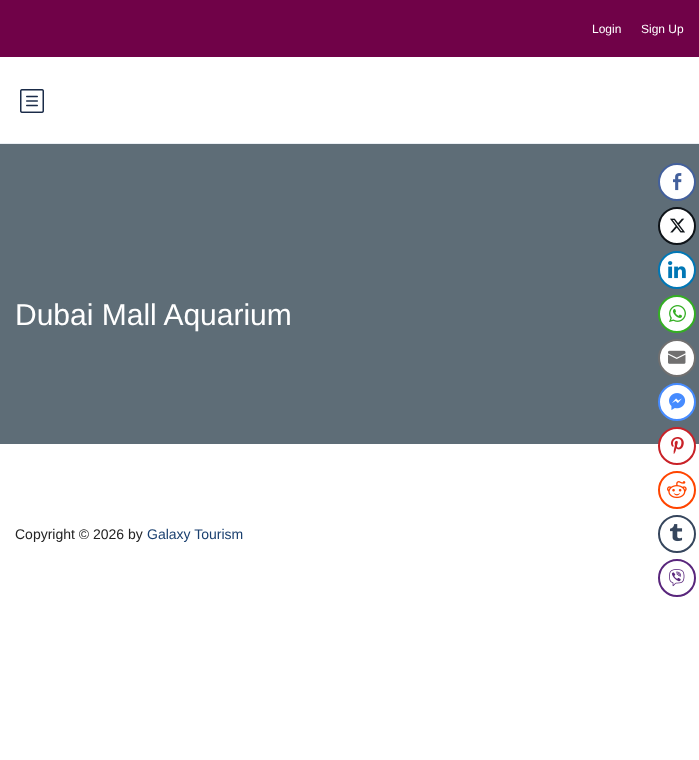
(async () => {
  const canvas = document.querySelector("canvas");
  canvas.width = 699;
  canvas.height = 760;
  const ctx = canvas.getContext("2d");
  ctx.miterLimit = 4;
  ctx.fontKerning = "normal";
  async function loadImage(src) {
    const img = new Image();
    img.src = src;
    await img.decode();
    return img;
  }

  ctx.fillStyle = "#ffffff";
  ctx.fillRect(0, 0, 699, 760);
  ctx.fillStyle = "#700248";
  ctx.fillRect(0, 0, 699, 57);
  ctx.fillStyle = "#eaeef3";
  ctx.fillRect(0, 143, 699, 1);
  ctx.drawImage(await loadImage("img/1.png"), 20, 89, 24, 24);
  ctx.fillStyle = "#5e6d77";
  ctx.fillRect(0, 144, 699, 300);
  ctx.fillStyle = "#ffffff";
  ctx.beginPath();
  ctx.arc(677, 182, 18, 0, Math.PI * 2);
  ctx.fill();
  ctx.strokeStyle = "#43609c";
  ctx.lineWidth = 2;
  ctx.stroke();
  ctx.drawImage(await loadImage("img/2.png"), 673, 173, 9, 18);
  ctx.beginPath();
  ctx.arc(677, 226, 18, 0, Math.PI * 2);
  ctx.fill();
  ctx.strokeStyle = "#0f1419";
  ctx.stroke();
  ctx.drawImage(await loadImage("img/3.png"), 670, 218, 15, 15);
  ctx.beginPath();
  ctx.arc(677, 270, 18, 0, Math.PI * 2);
  ctx.fill();
  ctx.strokeStyle = "#0077b5";
  ctx.stroke();
  ctx.drawImage(await loadImage("img/4.png"), 668, 261, 18, 18);
  ctx.beginPath();
  ctx.arc(677, 314, 18, 0, Math.PI * 2);
  ctx.fill();
  ctx.strokeStyle = "#34af23";
  ctx.stroke();
  ctx.drawImage(await loadImage("img/5.png"), 669, 305, 17, 17);
  ctx.beginPath();
  ctx.arc(677, 358, 18, 0, Math.PI * 2);
  ctx.fill();
  ctx.strokeStyle = "#717070";
  ctx.stroke();
  ctx.drawImage(await loadImage("img/6.png"), 668, 350, 18, 14);
  ctx.beginPath();
  ctx.arc(677, 402, 18, 0, Math.PI * 2);
  ctx.fill();
  ctx.strokeStyle = "#468bff";
  ctx.stroke();
  ctx.drawImage(await loadImage("img/7.png"), 669, 393, 17, 17);
  ctx.beginPath();
  ctx.arc(677, 446, 18, 0, Math.PI * 2);
  ctx.fill();
  ctx.strokeStyle = "#c92228";
  ctx.stroke();
  ctx.drawImage(await loadImage("img/8.png"), 671, 437, 13, 17);
  ctx.beginPath();
  ctx.arc(677, 490, 18, 0, Math.PI * 2);
  ctx.strokeStyle = "#ff4500";
  ctx.stroke();
  ctx.drawImage(await loadImage("img/9.png"), 667, 481, 20, 18);
  ctx.beginPath();
  ctx.arc(677, 534, 18, 0, Math.PI * 2);
  ctx.strokeStyle = "#36465d";
  ctx.stroke();
  ctx.drawImage(await loadImage("img/10.png"), 670, 524, 13, 18);
  ctx.beginPath();
  ctx.arc(677, 578, 18, 0, Math.PI * 2);
  ctx.strokeStyle = "#59267c";
  ctx.stroke();
  ctx.drawImage(await loadImage("img/11.png"), 669, 569, 16, 18);
  ctx.font = "12px Liberation Sans";
  ctx.fillText("Login", 592, 33);
  ctx.fillText("Sign Up", 641, 33);
  ctx.font = "30px Liberation Sans";
  ctx.fillText("Dubai Mall Aquarium", 15, 325);
  ctx.font = "14px Liberation Sans";
  ctx.fillStyle = "#232323";
  ctx.fillText("Copyright © 2026 by", 15, 539);
  ctx.fillStyle = "#193f6f";
  ctx.fillText("Galaxy Tourism", 147, 539);
})();
